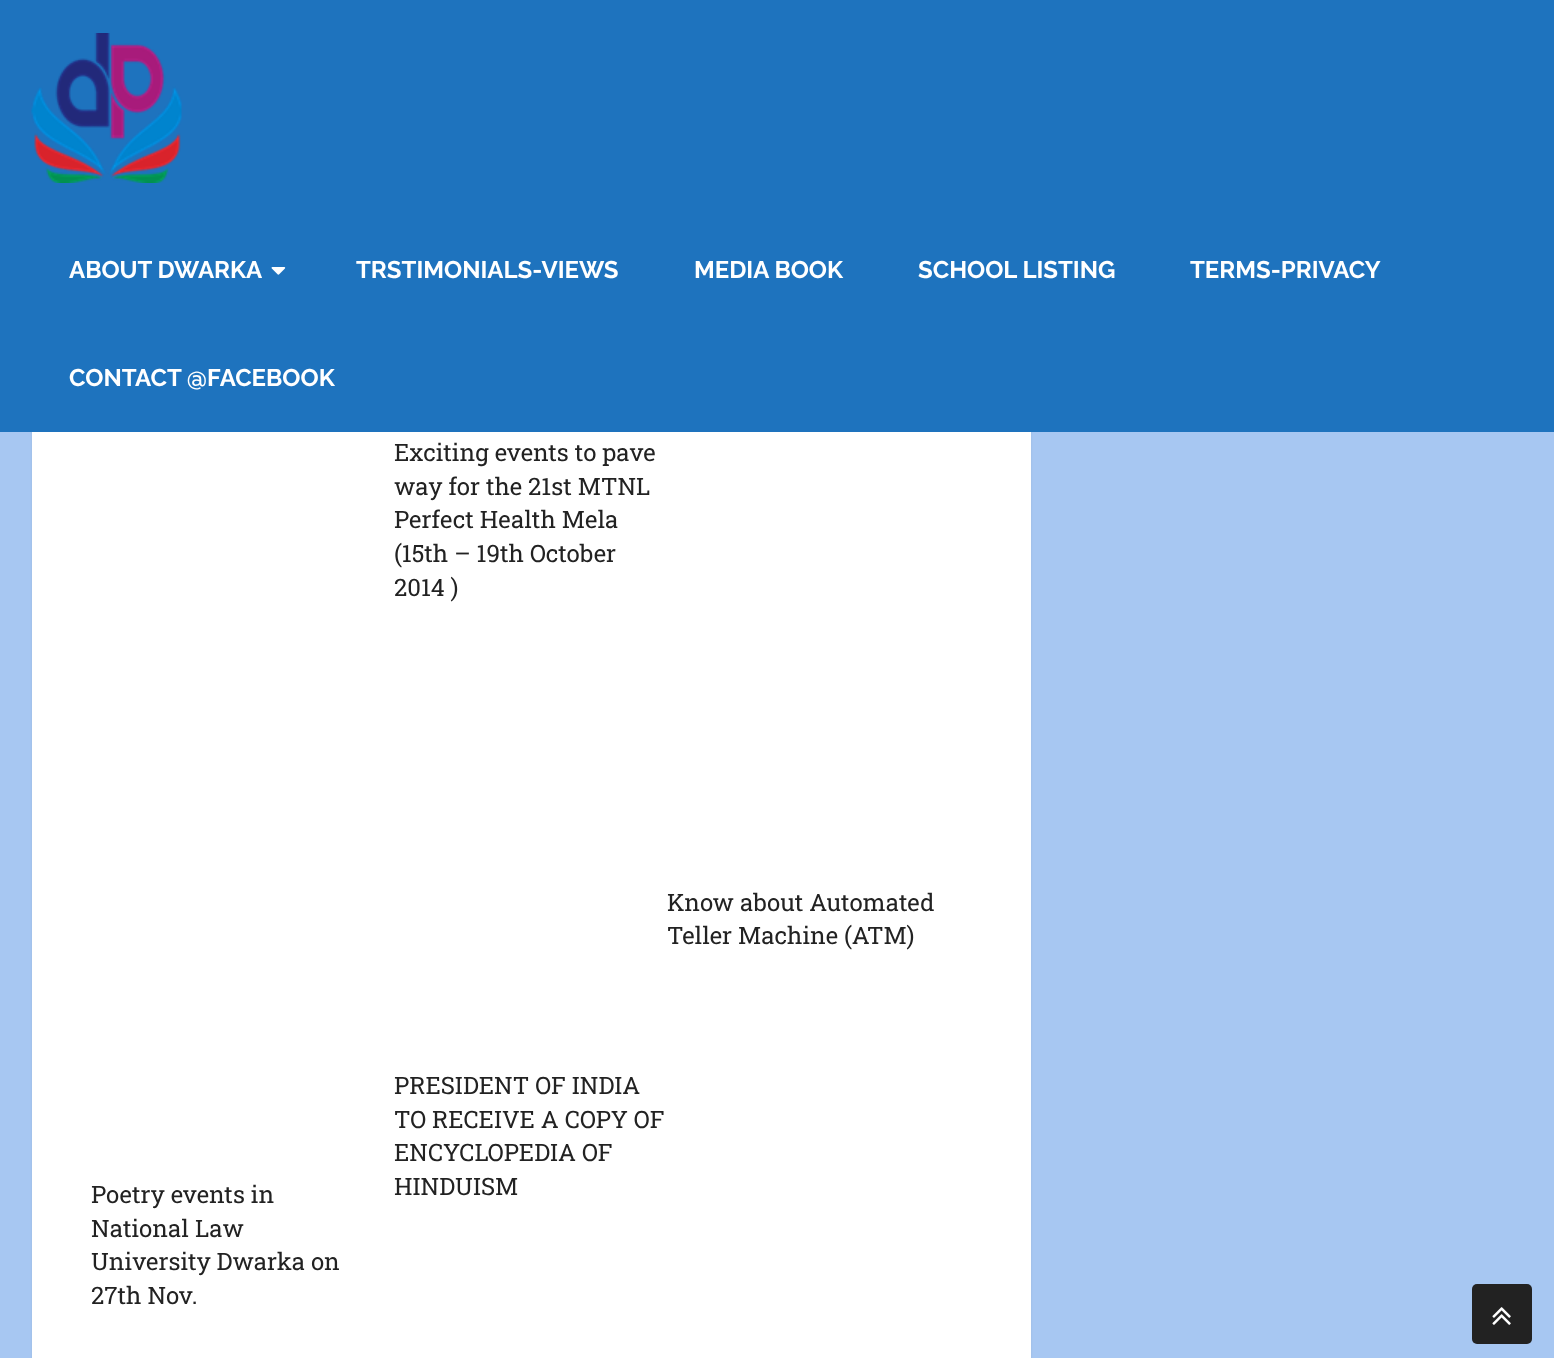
(async () => {
  const canvas = document.querySelector("canvas");
  canvas.width = 1554;
  canvas.height = 1358;
  const ctx = canvas.getContext("2d");
  ctx.miterLimit = 4;
  ctx.fontKerning = "normal";
  async function loadImage(src) {
    const img = new Image();
    img.src = src;
    await img.decode();
    return img;
  }

  ctx.fillStyle = "#a7c7f2";
  ctx.fillRect(0, 0, 1554, 1358);
  ctx.fillStyle = "rgba(50, 50, 50, 0.1)";
  ctx.filter = "blur(1px)";
  ctx.beginPath();
  ctx.rect(32, -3, 999, 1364);
  ctx.fill();
  ctx.filter = "none";
  ctx.fillStyle = "#1e73be";
  ctx.fillRect(0, 0, 1554, 432);
  ctx.drawImage(await loadImage("img/1.png"), 31, 33, 151, 150);
  ctx.drawImage(await loadImage("img/2.png"), 271, 267, 15, 8);
  ctx.fillStyle = "#ffffff";
  ctx.fillRect(32, 432, 999, 926);
  ctx.fillStyle = "#222222";
  ctx.beginPath();
  ctx.roundRect(1472, 1284, 60, 60, 5);
  ctx.fill();
  ctx.drawImage(await loadImage("img/3.png"), 1492, 1307, 19, 18);
  ctx.font = "bold 24px Raleway";
  ctx.fillStyle = "#ffffff";
  for (const [text, x, y] of [
    ["ABOUT DWARKA", 69, 278],
    ["TRSTIMONIALS-VIEWS", 356, 278],
    ["MEDIA BOOK", 694, 278],
    ["SCHOOL LISTING", 918, 278],
    ["TERMS-PRIVACY", 1190, 278],
    ["CONTACT @FACEBOOK", 69, 386],
  ]) {
    ctx.fillText(text, x, y);
  }
  ctx.font = "24px Roboto Slab";
  ctx.fillStyle = "#222222";
  for (const [text, x, y] of [
    ["Exciting events to pave", 394, 461],
    ["way for the 21st MTNL", 394, 495],
    ["Perfect Health Mela", 394, 528],
    ["(15th – 19th October", 394, 562],
    ["2014 )", 394, 596],
    ["Know about Automated", 667, 911],
    ["Teller Machine (ATM)", 667, 944],
    ["PRESIDENT OF INDIA", 394, 1094],
    ["TO RECEIVE A COPY OF", 394, 1128],
    ["ENCYCLOPEDIA OF", 394, 1161],
    ["HINDUISM", 394, 1195],
    ["Poetry events in", 91, 1203],
    ["National Law", 91, 1237],
    ["University Dwarka on", 91, 1270],
    ["27th Nov.", 91, 1304],
  ]) {
    ctx.fillText(text, x, y);
  }
})();
